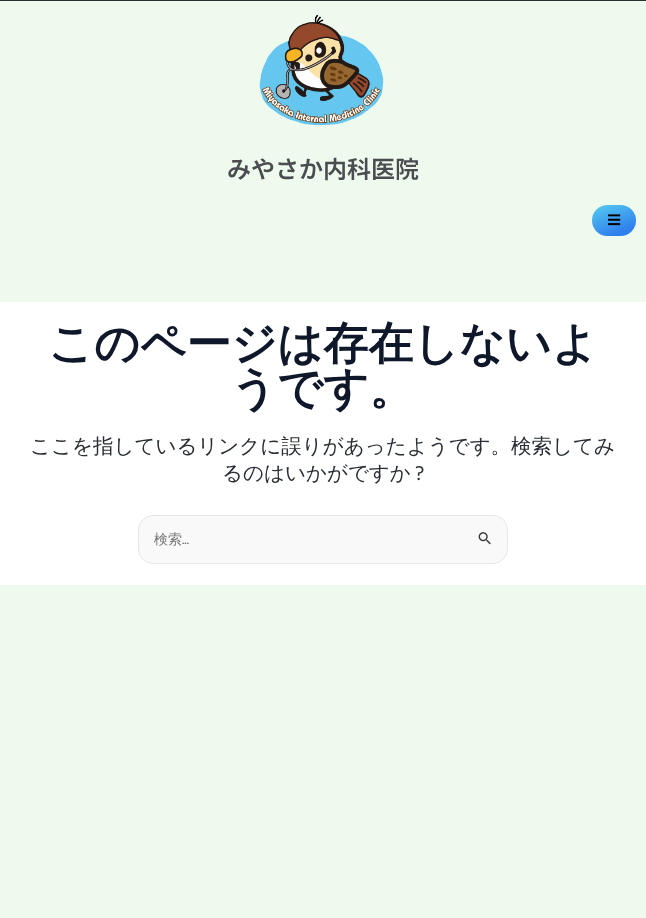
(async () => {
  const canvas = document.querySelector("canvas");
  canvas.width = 646;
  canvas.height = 918;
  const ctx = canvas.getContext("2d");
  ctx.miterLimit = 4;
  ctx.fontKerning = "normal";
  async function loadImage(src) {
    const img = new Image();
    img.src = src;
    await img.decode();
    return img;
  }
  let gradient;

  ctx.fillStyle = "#eefaee";
  ctx.fillRect(0, 0, 646, 918);
  ctx.fillStyle = "#292e35";
  ctx.fillRect(0, 0, 646, 1);
  ctx.drawImage(await loadImage("img/1.png"), 259, 15, 125, 111);
  gradient = ctx.createLinearGradient(622, 241, 606, 200);
  gradient.addColorStop(0.2, "#2f80ed");
  gradient.addColorStop(1, "#56ccf2");
  ctx.fillStyle = gradient;
  ctx.beginPath();
  ctx.roundRect(592, 205, 44, 31, 15.5);
  ctx.fill();
  ctx.drawImage(await loadImage("img/2.png"), 608, 214, 13, 12);
  ctx.fillStyle = "#ffffff";
  ctx.fillRect(0, 302, 646, 283);
  ctx.fillStyle = "#f9f9f9";
  ctx.beginPath();
  ctx.roundRect(138.5, 515.5, 369, 48, 14.5);
  ctx.fill();
  ctx.strokeStyle = "#e4e7ed";
  ctx.stroke();
  ctx.drawImage(await loadImage("img/3.png"), 478, 532, 13, 13);
  ctx.font = "600 24px Noto Sans JP";
  ctx.fillStyle = "#4a4c4f";
  ctx.fillText("みやさか内科医院", 227, 178);
  ctx.font = "bold 45px WenQuanYi Zen Hei";
  ctx.fillStyle = "#0f172a";
  ctx.fillText("このページは存在しないよ", 48, 359);
  ctx.fillText("うです。", 231, 404);
  ctx.font = "500 20.5px WenQuanYi Zen Hei";
  ctx.fillStyle = "#292e35";
  ctx.fillText("ここを指しているリンクに誤りがあったようです。検索してみ", 30, 453);
  ctx.fillText("るのはいかがですか", 222, 480);
  ctx.font = "20.5px Hind Siliguri";
  ctx.fillText("?", 415, 480);
  ctx.font = "500 14px WenQuanYi Zen Hei";
  ctx.fillStyle = "#757575";
  ctx.fillText("検索", 154, 544);
  ctx.font = "14px Hind Siliguri";
  ctx.fillText("...", 182, 544);
})();
